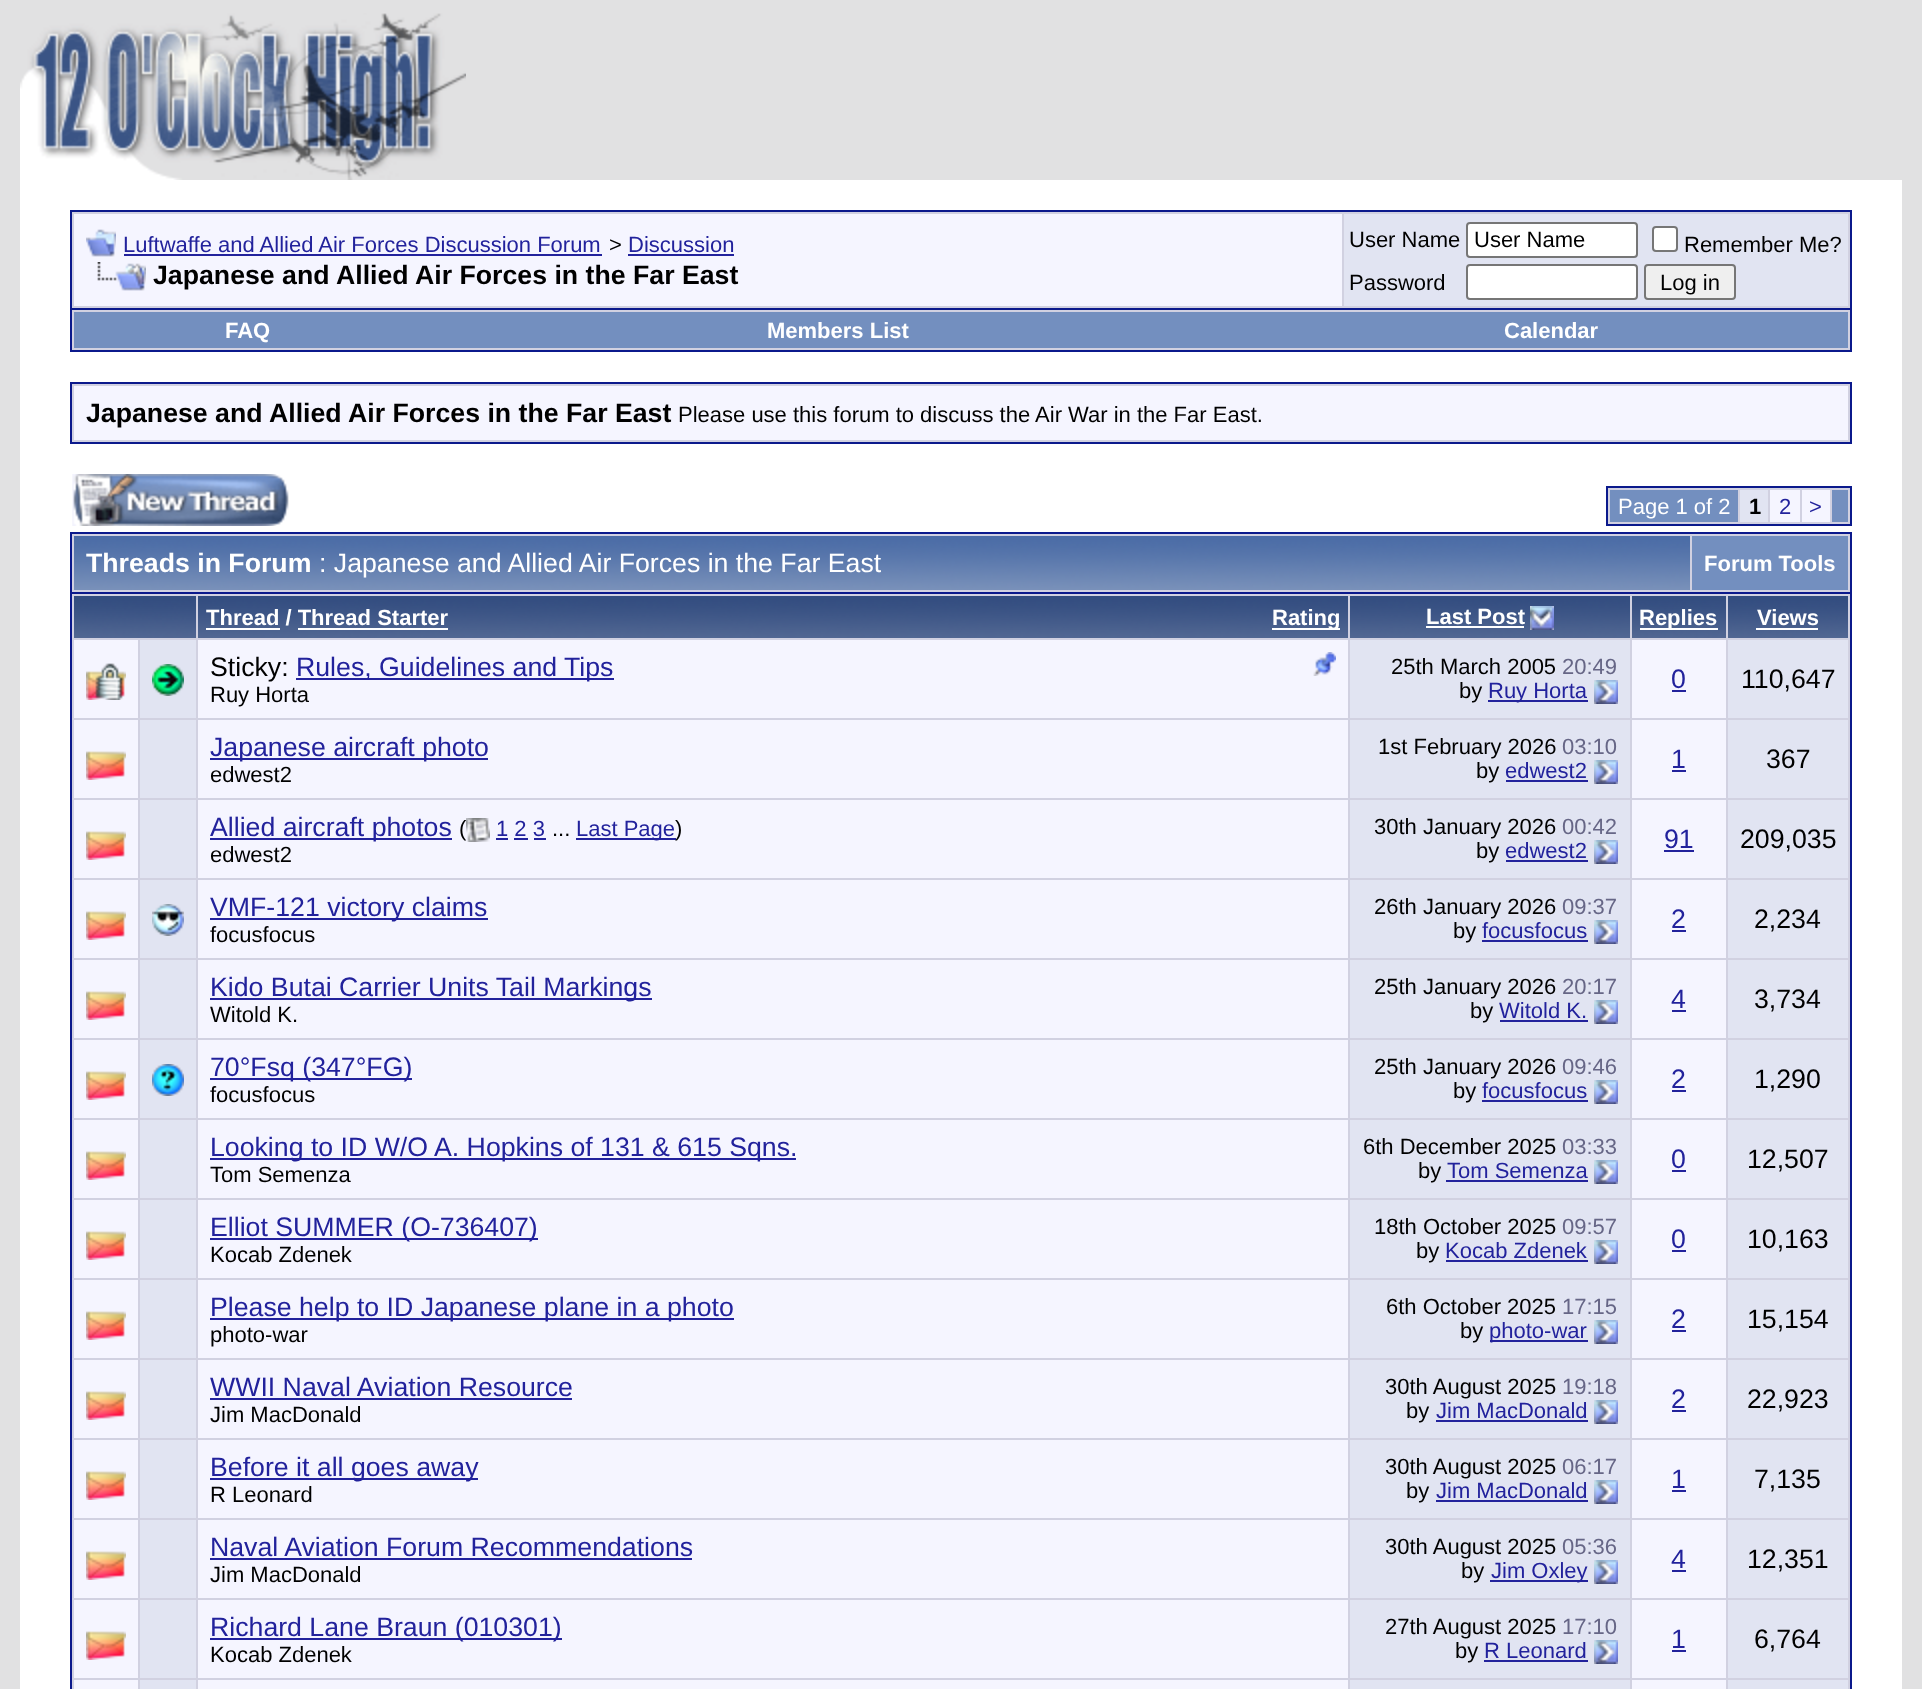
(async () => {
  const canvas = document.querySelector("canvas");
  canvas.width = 1922;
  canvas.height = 1689;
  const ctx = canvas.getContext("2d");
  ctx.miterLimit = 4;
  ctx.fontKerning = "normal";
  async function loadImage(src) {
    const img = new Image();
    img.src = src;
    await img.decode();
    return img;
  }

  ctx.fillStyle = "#e1e1e2";
  ctx.fillRect(0, 0, 1922, 1689);
  ctx.drawImage(await loadImage("img/1.png"), 20, 13, 446, 167);
  ctx.fillStyle = "#ffffff";
  ctx.fillRect(20, 180, 1882, 1509);
  ctx.fillStyle = "#d1d1e1";
  ctx.beginPath();
  ctx.rect(71, 211, 1780, 98);
  ctx.fill();
  ctx.strokeStyle = "#0b198c";
  ctx.lineWidth = 2;
  ctx.stroke();
  ctx.fillStyle = "#f5f5ff";
  ctx.fillRect(74, 214, 1268, 92);
  ctx.drawImage(await loadImage("img/2.png"), 86, 229, 30, 28);
  ctx.fillStyle = "#22229c";
  ctx.fillRect(124, 254, 478, 2);
  ctx.fillRect(628, 254, 106, 2);
  ctx.drawImage(await loadImage("img/3.png"), 97, 262, 49, 29);
  ctx.fillStyle = "#e1e4f2";
  ctx.fillRect(1344, 214, 504, 92);
  ctx.fillStyle = "#ffffff";
  ctx.beginPath();
  ctx.roundRect(1467, 223, 170, 34, 3);
  ctx.fill();
  ctx.strokeStyle = "#767676";
  ctx.stroke();
  ctx.beginPath();
  ctx.roundRect(1653, 227, 24, 24, 3);
  ctx.fill();
  ctx.stroke();
  ctx.beginPath();
  ctx.roundRect(1467, 265, 170, 34, 3);
  ctx.fill();
  ctx.stroke();
  ctx.fillStyle = "#efefef";
  ctx.beginPath();
  ctx.roundRect(1645, 265, 90, 34, 3);
  ctx.fill();
  ctx.stroke();
  for (const [x, y, w, h, color] of [
    [72, 310, 1778, 40, "#d1d1e1"],
    [1850, 310, 2, 42, "#0b198c"],
    [70, 350, 1782, 2, "#0b198c"],
    [70, 310, 2, 42, "#0b198c"],
    [74, 312, 1774, 36, "#738fbf"],
  ]) {
    ctx.fillStyle = color;
    ctx.fillRect(x, y, w, h);
  }
  ctx.fillStyle = "#d1d1e1";
  ctx.beginPath();
  ctx.rect(71, 383, 1780, 60);
  ctx.fill();
  ctx.strokeStyle = "#0b198c";
  ctx.stroke();
  ctx.fillStyle = "#f5f5ff";
  ctx.fillRect(74, 386, 1774, 54);
  ctx.drawImage(await loadImage("img/4.png"), 72, 474, 217, 52);
  ctx.fillStyle = "#d1d1e1";
  ctx.beginPath();
  ctx.rect(1607, 487, 244, 38);
  ctx.fill();
  ctx.stroke();
  for (const [x, y, w, h, color] of [
    [1610, 490, 128, 32, "#738fbf"],
    [1740, 490, 28, 32, "#e1e4f2"],
    [1770, 490, 30, 32, "#f5f5ff"],
    [1802, 490, 28, 32, "#f5f5ff"],
    [1832, 490, 16, 32, "#738fbf"],
    [72, 534, 1778, 58, "#d1d1e1"],
    [70, 532, 1782, 2, "#0b198c"],
    [1850, 532, 2, 60, "#0b198c"],
    [70, 532, 2, 60, "#0b198c"],
  ]) {
    ctx.fillStyle = color;
    ctx.fillRect(x, y, w, h);
  }
  ctx.drawImage(await loadImage("img/5.png"), 74, 536, 1616, 54);
  ctx.fillStyle = "#738fbf";
  ctx.fillRect(1692, 536, 156, 54);
  ctx.fillStyle = "#d1d1e1";
  ctx.beginPath();
  ctx.rect(71, 593, 1780, 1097);
  ctx.fill();
  ctx.stroke();
  ctx.drawImage(await loadImage("img/6.png"), 74, 596, 122, 42);
  ctx.drawImage(await loadImage("img/7.png"), 198, 596, 1150, 42);
  for (const [x, y, w, h, color] of [
    [206, 628, 74, 2, "#ffffff"],
    [1272, 628, 68, 2, "#ffffff"],
    [298, 628, 150, 2, "#ffffff"],
  ]) {
    ctx.fillStyle = color;
    ctx.fillRect(x, y, w, h);
  }
  ctx.drawImage(await loadImage("img/8.png"), 1350, 596, 280, 42);
  ctx.fillRect(1426, 626, 98, 2);
  ctx.drawImage(await loadImage("img/9.png"), 1530, 606, 24, 24);
  ctx.drawImage(await loadImage("img/10.png"), 1632, 596, 94, 42);
  ctx.fillRect(1640, 628, 78, 2);
  ctx.drawImage(await loadImage("img/11.png"), 1728, 596, 120, 42);
  ctx.fillRect(1756, 628, 62, 2);
  ctx.fillStyle = "#f5f5ff";
  ctx.fillRect(74, 640, 64, 78);
  ctx.drawImage(await loadImage("img/12.png"), 86, 663, 40, 37);
  ctx.fillStyle = "#e1e4f2";
  ctx.fillRect(140, 640, 56, 78);
  ctx.drawImage(await loadImage("img/13.png"), 152, 664, 32, 32);
  ctx.fillStyle = "#f5f5ff";
  ctx.fillRect(198, 640, 1150, 78);
  ctx.fillStyle = "#22229c";
  ctx.fillRect(296, 678, 318, 2);
  ctx.drawImage(await loadImage("img/14.png"), 1313, 652, 23, 24);
  ctx.fillStyle = "#e1e4f2";
  ctx.fillRect(1350, 640, 280, 78);
  ctx.fillStyle = "#22229c";
  ctx.fillRect(1488, 700, 100, 2);
  ctx.drawImage(await loadImage("img/15.png"), 1594, 680, 24, 24);
  for (const [x, y, w, h, color] of [
    [1632, 640, 94, 78, "#f5f5ff"],
    [1672, 690, 14, 2, "#22229c"],
    [1728, 640, 120, 78, "#e1e4f2"],
    [74, 720, 64, 78, "#f5f5ff"],
  ]) {
    ctx.fillStyle = color;
    ctx.fillRect(x, y, w, h);
  }
  ctx.drawImage(await loadImage("img/16.png"), 86, 751, 40, 29);
  for (const [x, y, w, h, color] of [
    [140, 720, 56, 78, "#e1e4f2"],
    [198, 720, 1150, 78, "#f5f5ff"],
    [210, 758, 278, 2, "#22229c"],
    [1350, 720, 280, 78, "#e1e4f2"],
    [1506, 780, 82, 2, "#22229c"],
  ]) {
    ctx.fillStyle = color;
    ctx.fillRect(x, y, w, h);
  }
  ctx.drawImage(await loadImage("img/15.png"), 1594, 760, 24, 24);
  for (const [x, y, w, h, color] of [
    [1632, 720, 94, 78, "#f5f5ff"],
    [1672, 770, 14, 2, "#22229c"],
    [1728, 720, 120, 78, "#e1e4f2"],
    [74, 800, 64, 78, "#f5f5ff"],
  ]) {
    ctx.fillStyle = color;
    ctx.fillRect(x, y, w, h);
  }
  ctx.drawImage(await loadImage("img/16.png"), 86, 831, 40, 29);
  for (const [x, y, w, h, color] of [
    [140, 800, 56, 78, "#e1e4f2"],
    [198, 800, 1150, 78, "#f5f5ff"],
    [210, 838, 242, 2, "#22229c"],
    [496, 838, 12, 2, "#22229c"],
    [514, 838, 14, 2, "#22229c"],
    [534, 838, 12, 2, "#22229c"],
    [576, 838, 100, 2, "#22229c"],
    [1350, 800, 280, 78, "#e1e4f2"],
    [1506, 860, 82, 2, "#22229c"],
  ]) {
    ctx.fillStyle = color;
    ctx.fillRect(x, y, w, h);
  }
  ctx.drawImage(await loadImage("img/15.png"), 1594, 840, 24, 24);
  for (const [x, y, w, h, color] of [
    [1632, 800, 94, 78, "#f5f5ff"],
    [1664, 850, 30, 2, "#22229c"],
    [1728, 800, 120, 78, "#e1e4f2"],
    [74, 880, 64, 78, "#f5f5ff"],
  ]) {
    ctx.fillStyle = color;
    ctx.fillRect(x, y, w, h);
  }
  ctx.drawImage(await loadImage("img/16.png"), 86, 911, 40, 29);
  ctx.fillStyle = "#e1e4f2";
  ctx.fillRect(140, 880, 56, 78);
  ctx.drawImage(await loadImage("img/18.png"), 152, 904, 32, 32);
  for (const [x, y, w, h, color] of [
    [198, 880, 1150, 78, "#f5f5ff"],
    [210, 918, 278, 2, "#22229c"],
    [1350, 880, 280, 78, "#e1e4f2"],
    [1482, 940, 106, 2, "#22229c"],
  ]) {
    ctx.fillStyle = color;
    ctx.fillRect(x, y, w, h);
  }
  ctx.drawImage(await loadImage("img/15.png"), 1594, 920, 24, 24);
  for (const [x, y, w, h, color] of [
    [1632, 880, 94, 78, "#f5f5ff"],
    [1672, 930, 14, 2, "#22229c"],
    [1728, 880, 120, 78, "#e1e4f2"],
    [74, 960, 64, 78, "#f5f5ff"],
  ]) {
    ctx.fillStyle = color;
    ctx.fillRect(x, y, w, h);
  }
  ctx.drawImage(await loadImage("img/16.png"), 86, 991, 40, 29);
  for (const [x, y, w, h, color] of [
    [140, 960, 56, 78, "#e1e4f2"],
    [198, 960, 1150, 78, "#f5f5ff"],
    [210, 998, 442, 2, "#22229c"],
    [1350, 960, 280, 78, "#e1e4f2"],
    [1500, 1020, 88, 2, "#22229c"],
  ]) {
    ctx.fillStyle = color;
    ctx.fillRect(x, y, w, h);
  }
  ctx.drawImage(await loadImage("img/15.png"), 1594, 1000, 24, 24);
  for (const [x, y, w, h, color] of [
    [1632, 960, 94, 78, "#f5f5ff"],
    [1672, 1010, 14, 2, "#22229c"],
    [1728, 960, 120, 78, "#e1e4f2"],
    [74, 1040, 64, 78, "#f5f5ff"],
  ]) {
    ctx.fillStyle = color;
    ctx.fillRect(x, y, w, h);
  }
  ctx.drawImage(await loadImage("img/16.png"), 86, 1071, 40, 29);
  ctx.fillStyle = "#e1e4f2";
  ctx.fillRect(140, 1040, 56, 78);
  ctx.drawImage(await loadImage("img/19.png"), 152, 1064, 32, 32);
  for (const [x, y, w, h, color] of [
    [198, 1040, 1150, 78, "#f5f5ff"],
    [210, 1078, 202, 2, "#22229c"],
    [1350, 1040, 280, 78, "#e1e4f2"],
    [1482, 1100, 106, 2, "#22229c"],
  ]) {
    ctx.fillStyle = color;
    ctx.fillRect(x, y, w, h);
  }
  ctx.drawImage(await loadImage("img/15.png"), 1594, 1080, 24, 24);
  for (const [x, y, w, h, color] of [
    [1632, 1040, 94, 78, "#f5f5ff"],
    [1672, 1090, 14, 2, "#22229c"],
    [1728, 1040, 120, 78, "#e1e4f2"],
    [74, 1120, 64, 78, "#f5f5ff"],
  ]) {
    ctx.fillStyle = color;
    ctx.fillRect(x, y, w, h);
  }
  ctx.drawImage(await loadImage("img/16.png"), 86, 1151, 40, 29);
  for (const [x, y, w, h, color] of [
    [140, 1120, 56, 78, "#e1e4f2"],
    [198, 1120, 1150, 78, "#f5f5ff"],
    [210, 1158, 586, 2, "#22229c"],
    [1350, 1120, 280, 78, "#e1e4f2"],
    [1446, 1180, 142, 2, "#22229c"],
  ]) {
    ctx.fillStyle = color;
    ctx.fillRect(x, y, w, h);
  }
  ctx.drawImage(await loadImage("img/15.png"), 1594, 1160, 24, 24);
  for (const [x, y, w, h, color] of [
    [1632, 1120, 94, 78, "#f5f5ff"],
    [1672, 1170, 14, 2, "#22229c"],
    [1728, 1120, 120, 78, "#e1e4f2"],
    [74, 1200, 64, 78, "#f5f5ff"],
  ]) {
    ctx.fillStyle = color;
    ctx.fillRect(x, y, w, h);
  }
  ctx.drawImage(await loadImage("img/16.png"), 86, 1231, 40, 29);
  for (const [x, y, w, h, color] of [
    [140, 1200, 56, 78, "#e1e4f2"],
    [198, 1200, 1150, 78, "#f5f5ff"],
    [210, 1238, 328, 2, "#22229c"],
    [1350, 1200, 280, 78, "#e1e4f2"],
    [1446, 1260, 142, 2, "#22229c"],
  ]) {
    ctx.fillStyle = color;
    ctx.fillRect(x, y, w, h);
  }
  ctx.drawImage(await loadImage("img/15.png"), 1594, 1240, 24, 24);
  for (const [x, y, w, h, color] of [
    [1632, 1200, 94, 78, "#f5f5ff"],
    [1672, 1250, 14, 2, "#22229c"],
    [1728, 1200, 120, 78, "#e1e4f2"],
    [74, 1280, 64, 78, "#f5f5ff"],
  ]) {
    ctx.fillStyle = color;
    ctx.fillRect(x, y, w, h);
  }
  ctx.drawImage(await loadImage("img/16.png"), 86, 1311, 40, 29);
  for (const [x, y, w, h, color] of [
    [140, 1280, 56, 78, "#e1e4f2"],
    [198, 1280, 1150, 78, "#f5f5ff"],
    [210, 1318, 524, 2, "#22229c"],
    [1350, 1280, 280, 78, "#e1e4f2"],
    [1490, 1340, 98, 2, "#22229c"],
  ]) {
    ctx.fillStyle = color;
    ctx.fillRect(x, y, w, h);
  }
  ctx.drawImage(await loadImage("img/15.png"), 1594, 1320, 24, 24);
  for (const [x, y, w, h, color] of [
    [1632, 1280, 94, 78, "#f5f5ff"],
    [1672, 1330, 14, 2, "#22229c"],
    [1728, 1280, 120, 78, "#e1e4f2"],
    [74, 1360, 64, 78, "#f5f5ff"],
  ]) {
    ctx.fillStyle = color;
    ctx.fillRect(x, y, w, h);
  }
  ctx.drawImage(await loadImage("img/16.png"), 86, 1391, 40, 29);
  for (const [x, y, w, h, color] of [
    [140, 1360, 56, 78, "#e1e4f2"],
    [198, 1360, 1150, 78, "#f5f5ff"],
    [210, 1398, 362, 2, "#22229c"],
    [1350, 1360, 280, 78, "#e1e4f2"],
    [1436, 1420, 152, 2, "#22229c"],
  ]) {
    ctx.fillStyle = color;
    ctx.fillRect(x, y, w, h);
  }
  ctx.drawImage(await loadImage("img/15.png"), 1594, 1400, 24, 24);
  for (const [x, y, w, h, color] of [
    [1632, 1360, 94, 78, "#f5f5ff"],
    [1672, 1410, 14, 2, "#22229c"],
    [1728, 1360, 120, 78, "#e1e4f2"],
    [74, 1440, 64, 78, "#f5f5ff"],
  ]) {
    ctx.fillStyle = color;
    ctx.fillRect(x, y, w, h);
  }
  ctx.drawImage(await loadImage("img/16.png"), 86, 1471, 40, 29);
  for (const [x, y, w, h, color] of [
    [140, 1440, 56, 78, "#e1e4f2"],
    [198, 1440, 1150, 78, "#f5f5ff"],
    [210, 1478, 268, 2, "#22229c"],
    [1350, 1440, 280, 78, "#e1e4f2"],
    [1436, 1500, 152, 2, "#22229c"],
  ]) {
    ctx.fillStyle = color;
    ctx.fillRect(x, y, w, h);
  }
  ctx.drawImage(await loadImage("img/15.png"), 1594, 1480, 24, 24);
  for (const [x, y, w, h, color] of [
    [1632, 1440, 94, 78, "#f5f5ff"],
    [1672, 1490, 14, 2, "#22229c"],
    [1728, 1440, 120, 78, "#e1e4f2"],
    [74, 1520, 64, 78, "#f5f5ff"],
  ]) {
    ctx.fillStyle = color;
    ctx.fillRect(x, y, w, h);
  }
  ctx.drawImage(await loadImage("img/16.png"), 86, 1551, 40, 29);
  for (const [x, y, w, h, color] of [
    [140, 1520, 56, 78, "#e1e4f2"],
    [198, 1520, 1150, 78, "#f5f5ff"],
    [210, 1558, 482, 2, "#22229c"],
    [1350, 1520, 280, 78, "#e1e4f2"],
    [1490, 1580, 98, 2, "#22229c"],
  ]) {
    ctx.fillStyle = color;
    ctx.fillRect(x, y, w, h);
  }
  ctx.drawImage(await loadImage("img/15.png"), 1594, 1560, 24, 24);
  for (const [x, y, w, h, color] of [
    [1632, 1520, 94, 78, "#f5f5ff"],
    [1672, 1570, 14, 2, "#22229c"],
    [1728, 1520, 120, 78, "#e1e4f2"],
    [74, 1600, 64, 78, "#f5f5ff"],
  ]) {
    ctx.fillStyle = color;
    ctx.fillRect(x, y, w, h);
  }
  ctx.drawImage(await loadImage("img/16.png"), 86, 1631, 40, 29);
  for (const [x, y, w, h, color] of [
    [140, 1600, 56, 78, "#e1e4f2"],
    [198, 1600, 1150, 78, "#f5f5ff"],
    [210, 1638, 352, 2, "#22229c"],
    [1350, 1600, 280, 78, "#e1e4f2"],
    [1484, 1660, 104, 2, "#22229c"],
  ]) {
    ctx.fillStyle = color;
    ctx.fillRect(x, y, w, h);
  }
  ctx.drawImage(await loadImage("img/15.png"), 1594, 1640, 24, 24);
  for (const [x, y, w, h, color] of [
    [1632, 1600, 94, 78, "#f5f5ff"],
    [1672, 1650, 14, 2, "#22229c"],
    [1728, 1600, 120, 78, "#e1e4f2"],
    [74, 1680, 64, 9, "#f5f5ff"],
    [140, 1680, 56, 9, "#e1e4f2"],
    [198, 1680, 1150, 9, "#f5f5ff"],
    [1350, 1680, 280, 9, "#e1e4f2"],
    [1632, 1680, 94, 9, "#f5f5ff"],
    [1728, 1680, 120, 9, "#e1e4f2"],
  ]) {
    ctx.fillStyle = color;
    ctx.fillRect(x, y, w, h);
  }
  ctx.font = "22px Liberation Sans";
  ctx.fillStyle = "#22229c";
  ctx.fillText("Luftwaffe and Allied Air Forces Discussion Forum", 123, 252);
  ctx.fillStyle = "#000000";
  ctx.fillText(">", 609, 252);
  ctx.fillStyle = "#22229c";
  ctx.fillText("Discussion", 628, 252);
  ctx.font = "bold 26.7px Liberation Sans";
  ctx.fillStyle = "#000000";
  ctx.fillText("Japanese and Allied Air Forces in the Far East", 153, 284);
  ctx.font = "22px Liberation Sans";
  for (const [text, x, y] of [
    ["User Name", 1349, 247],
    ["User Name", 1474, 247],
    ["Remember Me?", 1684, 252],
    ["Password", 1349, 290],
    ["Log in", 1660, 290],
  ]) {
    ctx.fillText(text, x, y);
  }
  ctx.font = "bold 22px Liberation Sans";
  ctx.fillStyle = "#ffffff";
  for (const [text, x, y] of [
    ["FAQ", 225, 338],
    ["Members List", 767, 338],
    ["Calendar", 1504, 338],
  ]) {
    ctx.fillText(text, x, y);
  }
  ctx.font = "bold 26.7px Liberation Sans";
  ctx.fillStyle = "#000000";
  ctx.fillText("Japanese and Allied Air Forces in the Far East", 86, 422);
  ctx.font = "22px Liberation Sans";
  ctx.fillText("Please use this forum to discuss the Air War in the Far East.", 678, 422);
  ctx.fillStyle = "#ffffff";
  ctx.fillText("Page 1 of 2", 1618, 514);
  ctx.font = "bold 22px Liberation Sans";
  ctx.fillStyle = "#000000";
  ctx.fillText("1", 1749, 514);
  ctx.font = "22px Liberation Sans";
  ctx.fillStyle = "#22229c";
  ctx.fillText("2", 1779, 514);
  ctx.fillText(">", 1809, 514);
  ctx.font = "bold 26.7px Liberation Sans";
  ctx.fillStyle = "#ffffff";
  ctx.fillText("Threads in Forum", 86, 572);
  ctx.font = "26.7px Liberation Sans";
  ctx.fillText(": Japanese and Allied Air Forces in the Far East", 319, 572);
  ctx.font = "bold 22px Liberation Sans";
  for (const [text, x, y] of [
    ["Forum Tools", 1704, 571],
    ["Thread / Thread Starter", 206, 625],
    ["Rating", 1272, 625],
    ["Last Post", 1426, 624],
    ["Replies", 1639, 625],
    ["Views", 1757, 625],
  ]) {
    ctx.fillText(text, x, y);
  }
  ctx.font = "26.7px Liberation Sans";
  ctx.fillStyle = "#000000";
  ctx.fillText("Sticky:", 210, 676);
  ctx.fillStyle = "#22229c";
  ctx.fillText("Rules, Guidelines and Tips", 296, 676);
  ctx.font = "22px Liberation Sans";
  ctx.fillStyle = "#000000";
  ctx.fillText("Ruy Horta", 210, 702);
  ctx.fillText("25th March 2005", 1391, 674);
  ctx.fillStyle = "#666686";
  ctx.fillText("20:49", 1562, 674);
  ctx.fillStyle = "#000000";
  ctx.fillText("by", 1459, 698);
  ctx.fillStyle = "#22229c";
  ctx.fillText("Ruy Horta", 1488, 698);
  ctx.font = "26.7px Liberation Sans";
  ctx.fillText("0", 1671, 688);
  ctx.fillStyle = "#000000";
  ctx.fillText("110,647", 1741, 688);
  ctx.fillStyle = "#22229c";
  ctx.fillText("Japanese aircraft photo", 210, 756);
  ctx.font = "22px Liberation Sans";
  ctx.fillStyle = "#000000";
  ctx.fillText("edwest2", 210, 782);
  ctx.fillText("1st February 2026", 1378, 754);
  ctx.fillStyle = "#666686";
  ctx.fillText("03:10", 1562, 754);
  ctx.fillStyle = "#000000";
  ctx.fillText("by", 1476, 778);
  ctx.fillStyle = "#22229c";
  ctx.fillText("edwest2", 1505, 778);
  ctx.font = "26.7px Liberation Sans";
  ctx.fillText("1", 1671, 768);
  ctx.fillStyle = "#000000";
  ctx.fillText("367", 1766, 768);
  ctx.fillStyle = "#22229c";
  ctx.fillText("Allied aircraft photos", 210, 836);
  ctx.font = "22px Liberation Sans";
  ctx.fillStyle = "#000000";
  ctx.fillText("(", 459, 836);
  ctx.drawImage(await loadImage("img/17.png"), 466, 818, 24, 24);
  ctx.fillStyle = "#22229c";
  ctx.fillText("1 2 3", 496, 836);
  ctx.fillStyle = "#000000";
  ctx.fillText("...", 552, 836);
  ctx.fillStyle = "#22229c";
  ctx.fillText("Last Page", 576, 836);
  ctx.fillStyle = "#000000";
  for (const [text, x, y] of [
    [")", 675, 836],
    ["edwest2", 210, 862],
    ["30th January 2026", 1374, 834],
  ]) {
    ctx.fillText(text, x, y);
  }
  ctx.fillStyle = "#666686";
  ctx.fillText("00:42", 1562, 834);
  ctx.fillStyle = "#000000";
  ctx.fillText("by", 1476, 858);
  ctx.fillStyle = "#22229c";
  ctx.fillText("edwest2", 1505, 858);
  ctx.font = "26.7px Liberation Sans";
  ctx.fillText("91", 1664, 848);
  ctx.fillStyle = "#000000";
  ctx.fillText("209,035", 1740, 848);
  ctx.fillStyle = "#22229c";
  ctx.fillText("VMF-121 victory claims", 210, 916);
  ctx.font = "22px Liberation Sans";
  ctx.fillStyle = "#000000";
  ctx.fillText("focusfocus", 210, 942);
  ctx.fillText("26th January 2026", 1374, 914);
  ctx.fillStyle = "#666686";
  ctx.fillText("09:37", 1562, 914);
  ctx.fillStyle = "#000000";
  ctx.fillText("by", 1453, 938);
  ctx.fillStyle = "#22229c";
  ctx.fillText("focusfocus", 1482, 938);
  ctx.font = "26.7px Liberation Sans";
  ctx.fillText("2", 1671, 928);
  ctx.fillStyle = "#000000";
  ctx.fillText("2,234", 1754, 928);
  ctx.fillStyle = "#22229c";
  ctx.fillText("Kido Butai Carrier Units Tail Markings", 210, 996);
  ctx.font = "22px Liberation Sans";
  ctx.fillStyle = "#000000";
  ctx.fillText("Witold K.", 210, 1022);
  ctx.fillText("25th January 2026", 1374, 994);
  ctx.fillStyle = "#666686";
  ctx.fillText("20:17", 1562, 994);
  ctx.fillStyle = "#000000";
  ctx.fillText("by", 1470, 1018);
  ctx.fillStyle = "#22229c";
  ctx.fillText("Witold K.", 1499, 1018);
  ctx.font = "26.7px Liberation Sans";
  ctx.fillText("4", 1671, 1008);
  ctx.fillStyle = "#000000";
  ctx.fillText("3,734", 1754, 1008);
  ctx.fillStyle = "#22229c";
  ctx.fillText("70°Fsq (347°FG)", 210, 1076);
  ctx.font = "22px Liberation Sans";
  ctx.fillStyle = "#000000";
  ctx.fillText("focusfocus", 210, 1102);
  ctx.fillText("25th January 2026", 1374, 1074);
  ctx.fillStyle = "#666686";
  ctx.fillText("09:46", 1562, 1074);
  ctx.fillStyle = "#000000";
  ctx.fillText("by", 1453, 1098);
  ctx.fillStyle = "#22229c";
  ctx.fillText("focusfocus", 1482, 1098);
  ctx.font = "26.7px Liberation Sans";
  ctx.fillText("2", 1671, 1088);
  ctx.fillStyle = "#000000";
  ctx.fillText("1,290", 1754, 1088);
  ctx.fillStyle = "#22229c";
  ctx.fillText("Looking to ID W/O A. Hopkins of 131 & 615 Sqns.", 210, 1156);
  ctx.font = "22px Liberation Sans";
  ctx.fillStyle = "#000000";
  ctx.fillText("Tom Semenza", 210, 1182);
  ctx.fillText("6th December 2025", 1363, 1154);
  ctx.fillStyle = "#666686";
  ctx.fillText("03:33", 1562, 1154);
  ctx.fillStyle = "#000000";
  ctx.fillText("by", 1418, 1178);
  ctx.fillStyle = "#22229c";
  ctx.fillText("Tom Semenza", 1447, 1178);
  ctx.font = "26.7px Liberation Sans";
  ctx.fillText("0", 1671, 1168);
  ctx.fillStyle = "#000000";
  ctx.fillText("12,507", 1747, 1168);
  ctx.fillStyle = "#22229c";
  ctx.fillText("Elliot SUMMER (O-736407)", 210, 1236);
  ctx.font = "22px Liberation Sans";
  ctx.fillStyle = "#000000";
  ctx.fillText("Kocab Zdenek", 210, 1262);
  ctx.fillText("18th October 2025", 1374, 1234);
  ctx.fillStyle = "#666686";
  ctx.fillText("09:57", 1562, 1234);
  ctx.fillStyle = "#000000";
  ctx.fillText("by", 1416, 1258);
  ctx.fillStyle = "#22229c";
  ctx.fillText("Kocab Zdenek", 1445, 1258);
  ctx.font = "26.7px Liberation Sans";
  ctx.fillText("0", 1671, 1248);
  ctx.fillStyle = "#000000";
  ctx.fillText("10,163", 1747, 1248);
  ctx.fillStyle = "#22229c";
  ctx.fillText("Please help to ID Japanese plane in a photo", 210, 1316);
  ctx.font = "22px Liberation Sans";
  ctx.fillStyle = "#000000";
  ctx.fillText("photo-war", 210, 1342);
  ctx.fillText("6th October 2025", 1386, 1314);
  ctx.fillStyle = "#666686";
  ctx.fillText("17:15", 1562, 1314);
  ctx.fillStyle = "#000000";
  ctx.fillText("by", 1460, 1338);
  ctx.fillStyle = "#22229c";
  ctx.fillText("photo-war", 1489, 1338);
  ctx.font = "26.7px Liberation Sans";
  ctx.fillText("2", 1671, 1328);
  ctx.fillStyle = "#000000";
  ctx.fillText("15,154", 1747, 1328);
  ctx.fillStyle = "#22229c";
  ctx.fillText("WWII Naval Aviation Resource", 210, 1396);
  ctx.font = "22px Liberation Sans";
  ctx.fillStyle = "#000000";
  ctx.fillText("Jim MacDonald", 210, 1422);
  ctx.fillText("30th August 2025", 1385, 1394);
  ctx.fillStyle = "#666686";
  ctx.fillText("19:18", 1562, 1394);
  ctx.fillStyle = "#000000";
  ctx.fillText("by", 1406, 1418);
  ctx.fillStyle = "#22229c";
  ctx.fillText("Jim MacDonald", 1436, 1418);
  ctx.font = "26.7px Liberation Sans";
  ctx.fillText("2", 1671, 1408);
  ctx.fillStyle = "#000000";
  ctx.fillText("22,923", 1747, 1408);
  ctx.fillStyle = "#22229c";
  ctx.fillText("Before it all goes away", 210, 1476);
  ctx.font = "22px Liberation Sans";
  ctx.fillStyle = "#000000";
  ctx.fillText("R Leonard", 210, 1502);
  ctx.fillText("30th August 2025", 1385, 1474);
  ctx.fillStyle = "#666686";
  ctx.fillText("06:17", 1562, 1474);
  ctx.fillStyle = "#000000";
  ctx.fillText("by", 1406, 1498);
  ctx.fillStyle = "#22229c";
  ctx.fillText("Jim MacDonald", 1436, 1498);
  ctx.font = "26.7px Liberation Sans";
  ctx.fillText("1", 1671, 1488);
  ctx.fillStyle = "#000000";
  ctx.fillText("7,135", 1754, 1488);
  ctx.fillStyle = "#22229c";
  ctx.fillText("Naval Aviation Forum Recommendations", 210, 1556);
  ctx.font = "22px Liberation Sans";
  ctx.fillStyle = "#000000";
  ctx.fillText("Jim MacDonald", 210, 1582);
  ctx.fillText("30th August 2025", 1385, 1554);
  ctx.fillStyle = "#666686";
  ctx.fillText("05:36", 1562, 1554);
  ctx.fillStyle = "#000000";
  ctx.fillText("by", 1461, 1578);
  ctx.fillStyle = "#22229c";
  ctx.fillText("Jim Oxley", 1491, 1578);
  ctx.font = "26.7px Liberation Sans";
  ctx.fillText("4", 1671, 1568);
  ctx.fillStyle = "#000000";
  ctx.fillText("12,351", 1747, 1568);
  ctx.fillStyle = "#22229c";
  ctx.fillText("Richard Lane Braun (010301)", 210, 1636);
  ctx.font = "22px Liberation Sans";
  ctx.fillStyle = "#000000";
  ctx.fillText("Kocab Zdenek", 210, 1662);
  ctx.fillText("27th August 2025", 1385, 1634);
  ctx.fillStyle = "#666686";
  ctx.fillText("17:10", 1562, 1634);
  ctx.fillStyle = "#000000";
  ctx.fillText("by", 1455, 1658);
  ctx.fillStyle = "#22229c";
  ctx.fillText("R Leonard", 1484, 1658);
  ctx.font = "26.7px Liberation Sans";
  ctx.fillText("1", 1671, 1648);
  ctx.fillStyle = "#000000";
  ctx.fillText("6,764", 1754, 1648);
})();
